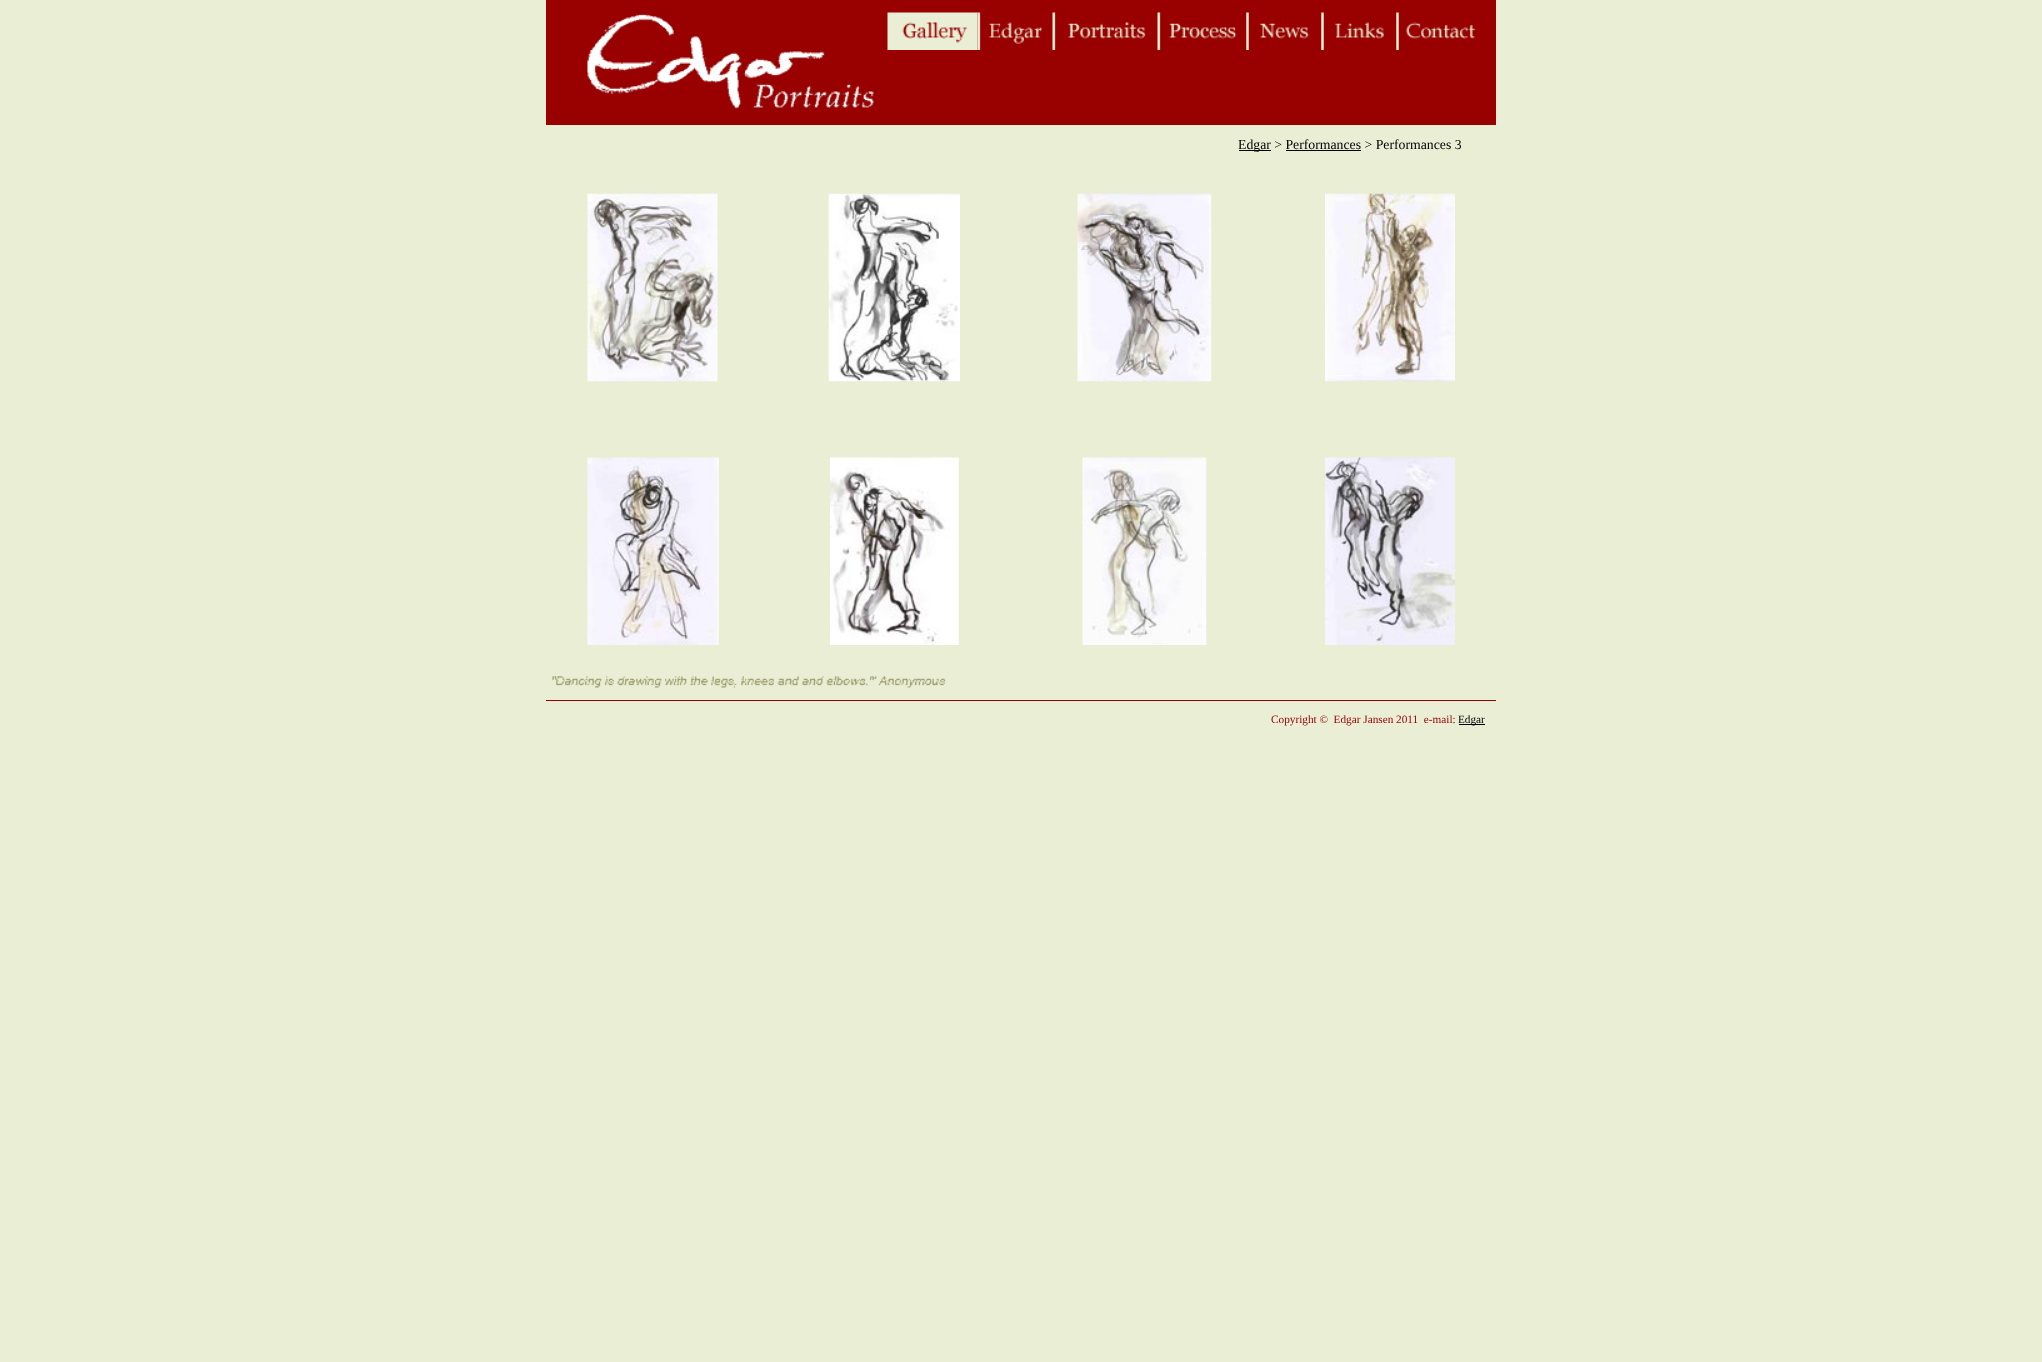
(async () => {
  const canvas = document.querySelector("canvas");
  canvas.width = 2042;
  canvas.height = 1362;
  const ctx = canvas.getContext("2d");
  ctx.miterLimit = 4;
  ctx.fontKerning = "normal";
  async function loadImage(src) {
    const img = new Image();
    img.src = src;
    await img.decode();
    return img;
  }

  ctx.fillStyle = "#e9eed5";
  ctx.fillRect(0, 0, 2042, 1362);
  ctx.fillStyle = "#990000";
  ctx.fillRect(546, 0, 950, 125);
  ctx.drawImage(await loadImage("img/1.png"), 586, 13, 289, 97);
  ctx.drawImage(await loadImage("img/2.png"), 887, 12, 91, 38);
  ctx.drawImage(await loadImage("img/3.png"), 977, 12, 66, 38);
  ctx.drawImage(await loadImage("img/4.png"), 1052, 12, 94, 38);
  ctx.drawImage(await loadImage("img/5.png"), 1157, 12, 80, 38);
  ctx.drawImage(await loadImage("img/6.png"), 1246, 12, 63, 38);
  ctx.drawImage(await loadImage("img/7.png"), 1321, 12, 63, 38);
  ctx.drawImage(await loadImage("img/8.png"), 1396, 12, 80, 38);
  ctx.fillStyle = "#000000";
  ctx.fillRect(1239, 150, 32, 1);
  ctx.fillRect(1286, 150, 75, 1);
  ctx.drawImage(await loadImage("img/9.png"), 587, 193, 131, 189);
  ctx.drawImage(await loadImage("img/10.png"), 828, 193, 132, 189);
  ctx.drawImage(await loadImage("img/11.png"), 1077, 193, 135, 189);
  ctx.drawImage(await loadImage("img/12.png"), 1325, 193, 130, 189);
  ctx.drawImage(await loadImage("img/13.png"), 587, 457, 132, 188);
  ctx.drawImage(await loadImage("img/14.png"), 830, 457, 129, 188);
  ctx.drawImage(await loadImage("img/15.png"), 1082, 457, 125, 188);
  ctx.drawImage(await loadImage("img/16.png"), 1325, 457, 130, 188);
  ctx.drawImage(await loadImage("img/17.png"), 552, 676, 394, 12);
  ctx.fillStyle = "#990000";
  ctx.fillRect(546, 700, 950, 1);
  ctx.fillStyle = "#000000";
  ctx.fillRect(1459, 724, 26, 1);
  ctx.font = "13.75px Liberation Serif";
  ctx.fillText("Edgar > Performances > Performances 3", 1238, 149);
  ctx.font = "11.25px Liberation Serif";
  ctx.fillStyle = "#990000";
  ctx.fillText("Copyright ©  Edgar Jansen 2011  e-mail:", 1271, 723);
  ctx.fillStyle = "#000000";
  ctx.fillText("Edgar", 1458, 723);
})();
